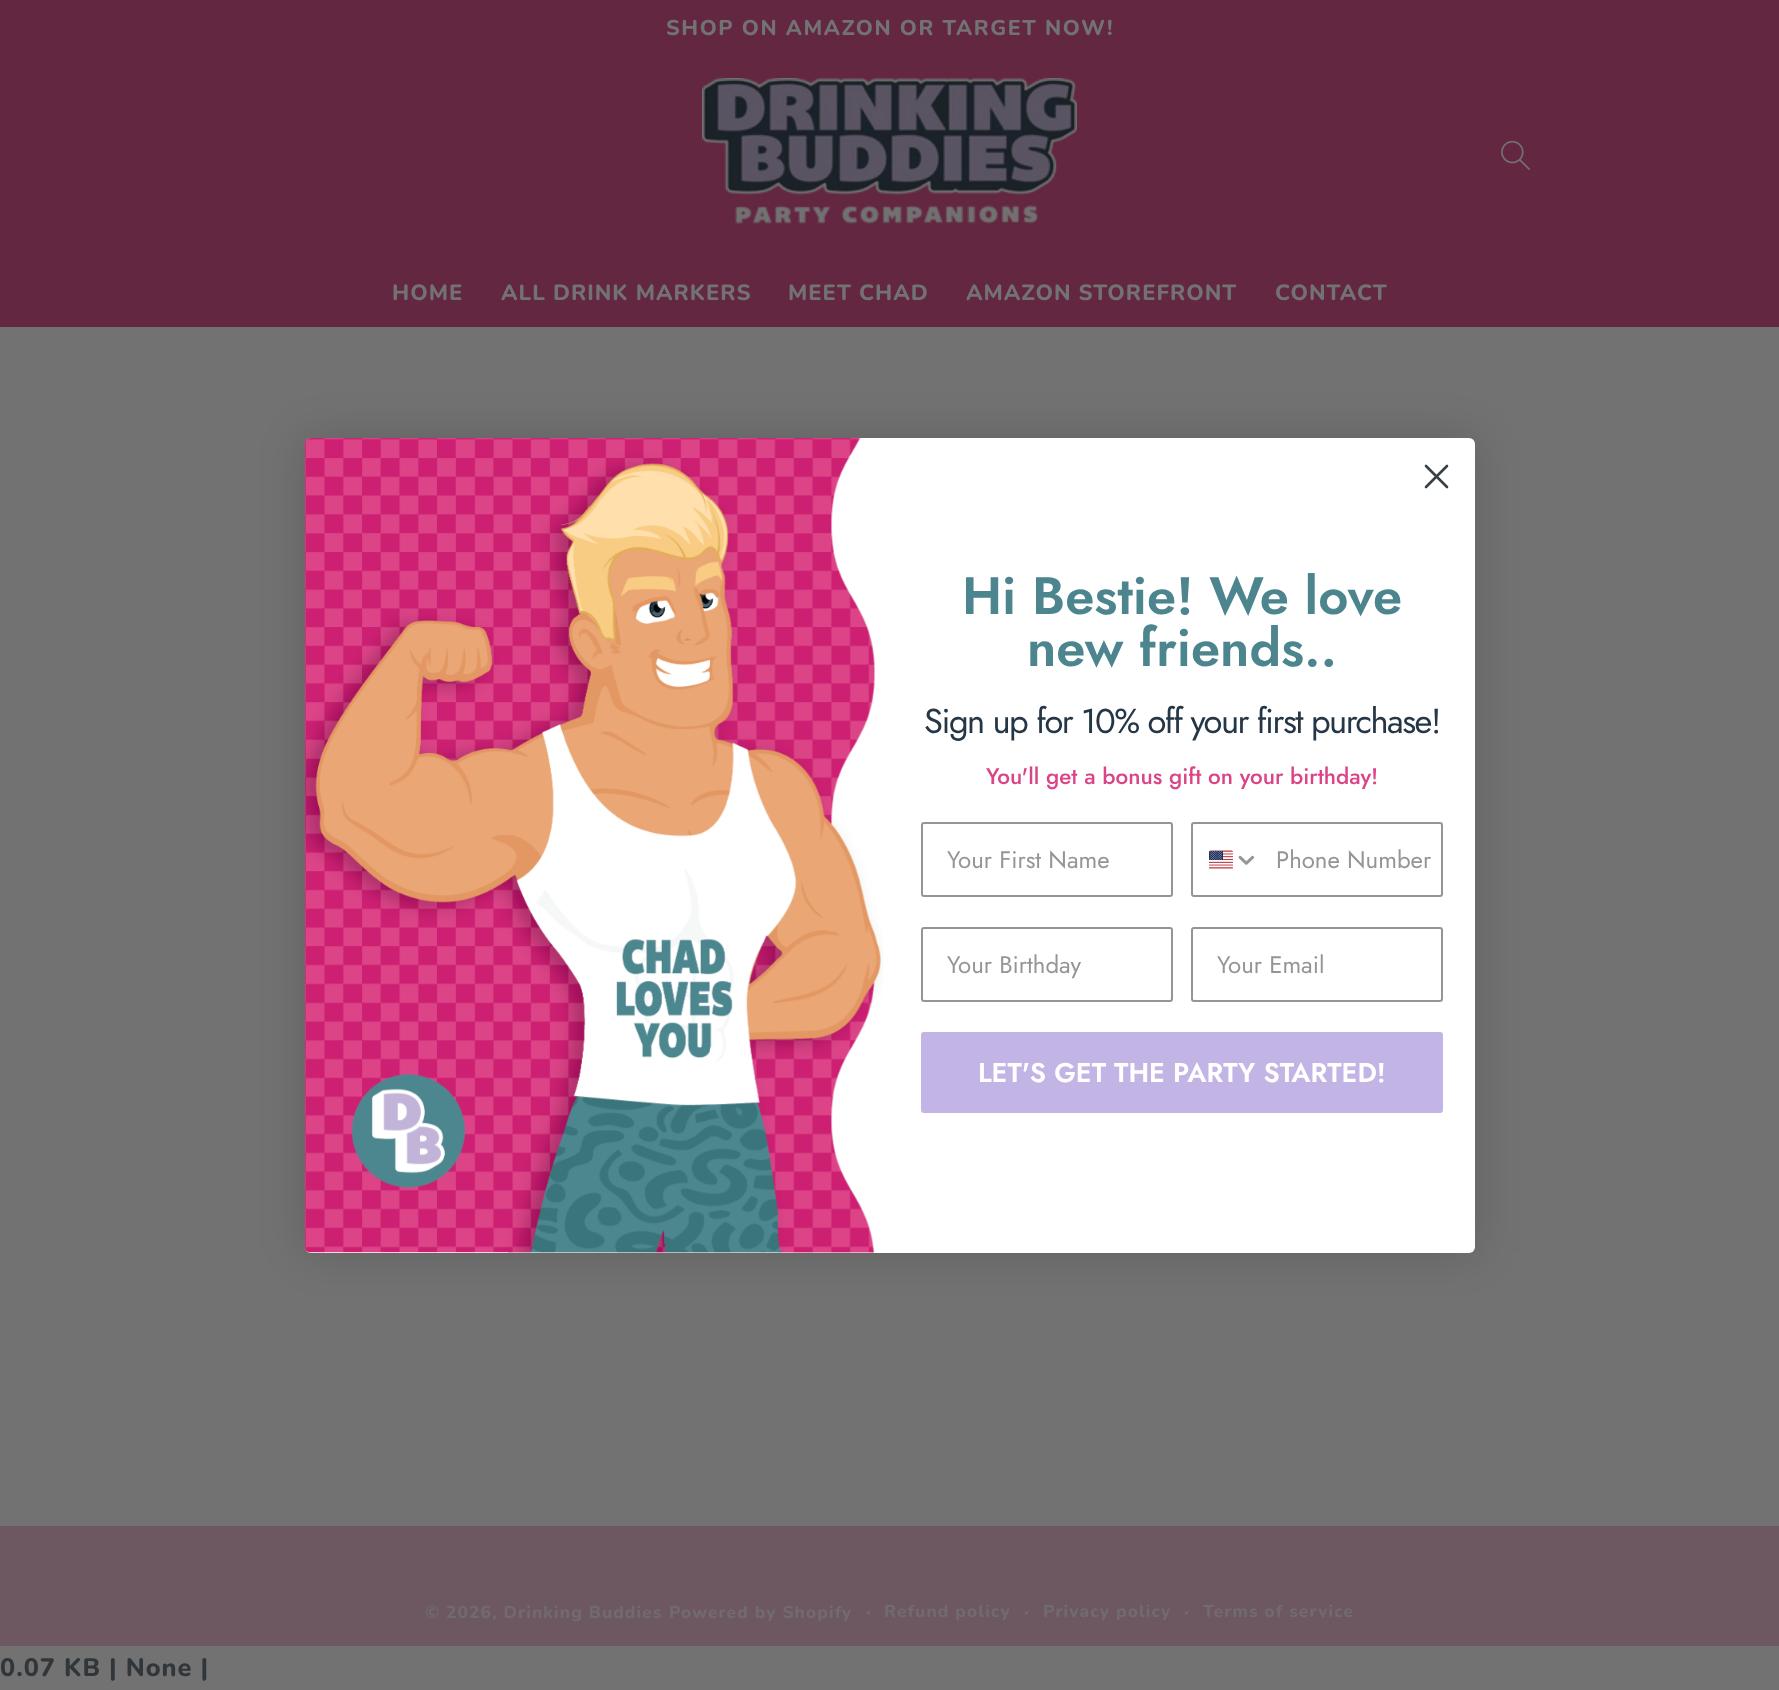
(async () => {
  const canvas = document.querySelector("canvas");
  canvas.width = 1779;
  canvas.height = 1690;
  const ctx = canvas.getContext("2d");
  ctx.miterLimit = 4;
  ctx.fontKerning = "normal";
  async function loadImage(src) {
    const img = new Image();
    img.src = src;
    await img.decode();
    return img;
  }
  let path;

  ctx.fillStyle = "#727272";
  ctx.fillRect(0, 0, 1779, 1690);
  ctx.fillStyle = "#642742";
  ctx.fillRect(0, 0, 1779, 327);
  ctx.drawImage(await loadImage("img/1.png"), 702, 78, 375, 146);
  ctx.drawImage(await loadImage("img/2.png"), 1501, 140, 29, 30);
  ctx.fillStyle = "rgba(0, 0, 0, 0.15)";
  ctx.filter = "blur(22.5px)";
  ctx.beginPath();
  ctx.roundRect(305, 438, 1170, 815, 6);
  ctx.fill();
  ctx.filter = "none";
  ctx.fillStyle = "#ffffff";
  ctx.beginPath();
  ctx.roundRect(305, 438, 1170, 815, 6);
  ctx.fill();
  path = new Path2D("M1426 466L1447 487M1426 487L1447 466Z");
  ctx.strokeStyle = "#373f47";
  ctx.lineWidth = 2.6;
  ctx.lineCap = "round";
  ctx.lineJoin = "round";
  ctx.stroke(path);
  ctx.drawImage(await loadImage("img/3.png"), 305, 438, 578, 815);
  ctx.beginPath();
  ctx.roundRect(922, 823, 250, 73, 2);
  ctx.strokeStyle = "#959595";
  ctx.lineWidth = 2;
  ctx.lineJoin = "miter";
  ctx.stroke();
  ctx.beginPath();
  ctx.roundRect(1192, 823, 250, 73, 2);
  ctx.stroke();
  ctx.drawImage(await loadImage("img/4.png"), 1209, 850, 24, 19);
  ctx.drawImage(await loadImage("img/5.png"), 1238, 855, 16, 10);
  ctx.beginPath();
  ctx.roundRect(922, 928, 250, 73, 2);
  ctx.stroke();
  ctx.beginPath();
  ctx.roundRect(1192, 928, 250, 73, 2);
  ctx.stroke();
  ctx.fillStyle = "#c2b4e4";
  ctx.beginPath();
  ctx.roundRect(921, 1032, 522, 81, 3);
  ctx.fill();
  ctx.fillStyle = "#6d5761";
  ctx.fillRect(0, 1526, 1779, 120);
  ctx.letterSpacing = "1.6px";
  ctx.font = "800 21.45px Nunito";
  ctx.fillStyle = "#727272";
  ctx.fillText("SHOP ON AMAZON OR TARGET NOW!", 666, 35);
  ctx.letterSpacing = "1px";
  ctx.font = "800 22px Nunito";
  for (const [text, x, y] of [
    ["HOME", 392, 300],
    ["ALL DRINK MARKERS", 501, 300],
    ["MEET CHAD", 788, 300],
    ["AMAZON STOREFRONT", 966, 300],
    ["CONTACT", 1275, 300],
  ]) {
    ctx.fillText(text, x, y);
  }
  ctx.letterSpacing = "0px";
  ctx.font = "600 52.5px Jost";
  ctx.fillStyle = "#4c858e";
  ctx.fillText("Hi Bestie! We love", 962, 614);
  ctx.fillText("new friends..", 1027, 666);
  ctx.letterSpacing = "-1.5px";
  ctx.font = "34.5px Jost";
  ctx.fillStyle = "#253746";
  ctx.fillText("Sign up for 10% off your first purchase!", 924, 733);
  ctx.letterSpacing = "0px";
  ctx.font = "500 22.5px Jost";
  ctx.fillStyle = "#db4487";
  ctx.fillText("You'll get a bonus gift on your birthday!", 986, 784);
  ctx.font = "24px Jost";
  ctx.fillStyle = "#959595";
  for (const [text, x, y] of [
    ["Your First Name", 947, 868],
    ["Phone Number", 1276, 868],
    ["Your Birthday", 947, 973],
    ["Your Email", 1217, 973],
  ]) {
    ctx.fillText(text, x, y);
  }
  ctx.font = "600 27px Jost";
  ctx.fillStyle = "#ffffff";
  ctx.fillText("LET'S GET THE PARTY STARTED!", 978, 1082);
  ctx.letterSpacing = "1.1px";
  ctx.font = "800 17.3px Nunito";
  ctx.fillStyle = "#716b6e";
  ctx.fillText("© 2026, Drinking Buddies", 425, 1618);
  ctx.fillText("Powered by Shopify", 669, 1618);
  ctx.font = "800 19px Nunito";
  ctx.fillText("·", 866, 1618);
  ctx.font = "800 17.3px Nunito";
  ctx.fillText("Refund policy", 884, 1617);
  ctx.font = "800 19px Nunito";
  ctx.fillText("·", 1024, 1618);
  ctx.font = "800 17.3px Nunito";
  ctx.fillText("Privacy policy", 1043, 1617);
  ctx.font = "800 19px Nunito";
  ctx.fillText("·", 1184, 1618);
  ctx.font = "800 17.3px Nunito";
  ctx.fillText("Terms of service", 1203, 1617);
  ctx.letterSpacing = "1px";
  ctx.font = "800 25.25px Nunito";
  ctx.fillStyle = "#31363a";
  ctx.fillText("0.07 KB | None |", 0, 1676);
})();
